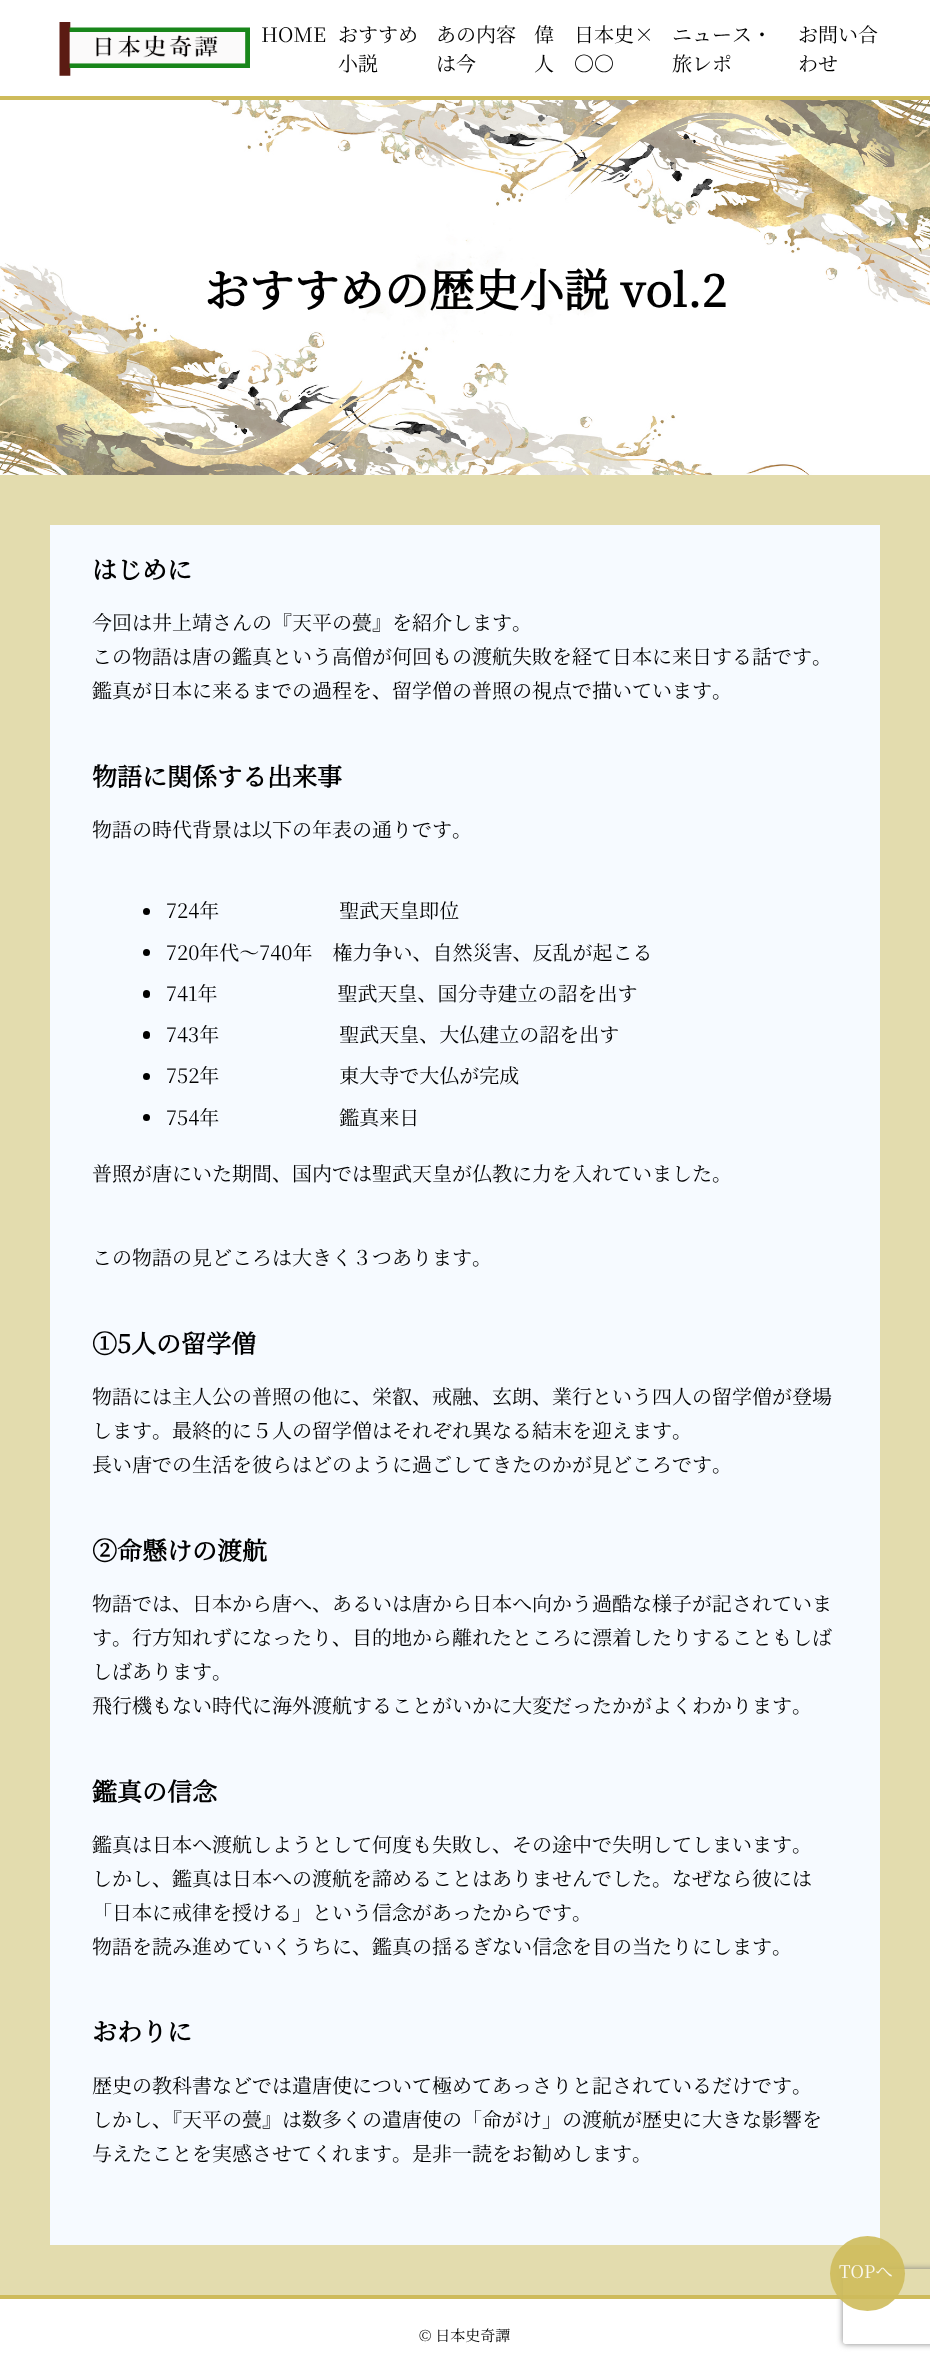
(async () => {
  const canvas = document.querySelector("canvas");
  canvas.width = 930;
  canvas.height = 2361;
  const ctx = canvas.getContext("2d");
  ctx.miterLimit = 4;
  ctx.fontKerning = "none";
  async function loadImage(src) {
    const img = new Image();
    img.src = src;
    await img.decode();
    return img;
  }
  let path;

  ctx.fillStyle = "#ffffff";
  ctx.fillRect(0, 0, 930, 2361);
  ctx.fillStyle = "#cebb5b";
  ctx.fillRect(0, 96, 930, 4);
  ctx.drawImage(await loadImage("img/1.png"), 59, 22, 191, 54);
  ctx.drawImage(await loadImage("img/2.png"), 0, 100, 930, 375);
  ctx.fillStyle = "#e3dcae";
  ctx.fillRect(0, 475, 930, 1820);
  ctx.fillStyle = "#f6faff";
  ctx.fillRect(50, 525, 830, 1720);
  ctx.fillStyle = "#000000";
  ctx.beginPath();
  ctx.arc(146.5, 911.5, 3.5, 0, Math.PI * 2);
  ctx.fill();
  ctx.beginPath();
  ctx.arc(146.5, 952.5, 3.5, 0, Math.PI * 2);
  ctx.fill();
  ctx.beginPath();
  ctx.roundRect(143, 990, 7, 8, 3.5);
  ctx.fill();
  ctx.beginPath();
  ctx.roundRect(143, 1031, 7, 8, 3.5);
  ctx.fill();
  ctx.beginPath();
  ctx.arc(146.5, 1076.5, 3.5, 0, Math.PI * 2);
  ctx.fill();
  ctx.beginPath();
  ctx.arc(146.5, 1117.5, 3.5, 0, Math.PI * 2);
  ctx.fill();
  ctx.fillStyle = "#cebb5b";
  ctx.fillRect(0, 2295, 930, 4);
  ctx.save();
  path = new Path2D("M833 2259H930V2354H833ZM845.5 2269H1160.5C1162 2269 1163 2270 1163 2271.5V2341.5C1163 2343 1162 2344 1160.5 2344H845.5C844 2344 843 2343 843 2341.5V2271.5C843 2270 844 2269 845.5 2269Z");
  ctx.clip(path, "evenodd");
  ctx.fillStyle = "#808080";
  ctx.filter = "blur(3px)";
  ctx.beginPath();
  ctx.roundRect(843, 2269, 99, 75, 2.5);
  ctx.fill();
  ctx.filter = "none";
  ctx.restore();
  ctx.fillStyle = "rgba(206, 187, 91, 0.9)";
  ctx.beginPath();
  ctx.arc(867.5, 2273.5, 37.5, 0, Math.PI * 2);
  ctx.fill();
  ctx.font = "200 20px Noto Serif JP";
  ctx.fillStyle = "#000000";
  for (const [text, x, y] of [
    ["HOME", 261, 42],
    ["おすすめ", 338, 42],
    ["小説", 338, 71],
    ["あの内容", 436, 42],
    ["は今", 436, 71],
    ["偉", 534, 42],
    ["人", 534, 71],
    ["日本史×", 574, 42],
    ["〇〇", 574, 71],
    ["ニュース・", 672, 42],
    ["旅レポ", 672, 71],
    ["お問い合", 798, 42],
    ["わせ", 798, 71],
  ]) {
    ctx.fillText(text, x, y);
  }
  ctx.font = "bold 45px Noto Serif JP";
  ctx.fillText("おすすめの歴史小説 vol.2", 204, 307);
  ctx.font = "bold 25px Noto Serif JP";
  ctx.fillText("はじめに", 92, 579);
  ctx.font = "200 20px Noto Serif JP";
  for (const [text, x, y] of [
    ["今回は井上靖さんの『天平の甍』を紹介します。", 92, 630],
    ["この物語は唐の鑑真という高僧が何回もの渡航失敗を経て日本に来日する話です。", 92, 664],
    ["鑑真が日本に来るまでの過程を、留学僧の普照の視点で描いています。", 92, 698],
  ]) {
    ctx.fillText(text, x, y);
  }
  ctx.font = "bold 25px Noto Serif JP";
  ctx.fillText("物語に関係する出来事", 92, 786);
  ctx.font = "200 20px Noto Serif JP";
  for (const [text, x, y] of [
    ["物語の時代背景は以下の年表の通りです。", 92, 837],
    ["724年　　　　　　聖武天皇即位", 166, 918],
    ["720年代〜740年　権力争い、自然災害、反乱が起こる", 166, 960],
    ["741年　　　　　　聖武天皇、国分寺建立の詔を出す", 166, 1001],
    ["743年　　　　　　聖武天皇、大仏建立の詔を出す", 166, 1042],
    ["752年　　　　　　東大寺で大仏が完成", 166, 1083],
    ["754年　　　　　　鑑真来日", 166, 1125],
    ["普照が唐にいた期間、国内では聖武天皇が仏教に力を入れていました。", 92, 1181],
    ["この物語の見どころは大きく３つあります。", 92, 1265],
  ]) {
    ctx.fillText(text, x, y);
  }
  ctx.font = "bold 25px Noto Serif JP";
  ctx.fillText("①5人の留学僧", 92, 1353);
  ctx.font = "200 20px Noto Serif JP";
  for (const [text, x, y] of [
    ["物語には主人公の普照の他に、栄叡、戒融、玄朗、業行という四人の留学僧が登場", 92, 1404],
    ["します。最終的に５人の留学僧はそれぞれ異なる結末を迎えます。", 92, 1438],
    ["長い唐での生活を彼らはどのように過ごしてきたのかが見どころです。", 92, 1472],
  ]) {
    ctx.fillText(text, x, y);
  }
  ctx.font = "bold 25px Noto Serif JP";
  ctx.fillText("②命懸けの渡航", 92, 1560);
  ctx.font = "200 20px Noto Serif JP";
  for (const [text, x, y] of [
    ["物語では、日本から唐へ、あるいは唐から日本へ向かう過酷な様子が記されていま", 92, 1611],
    ["す。行方知れずになったり、目的地から離れたところに漂着したりすることもしば", 92, 1645],
    ["しばあります。", 92, 1679],
    ["飛行機もない時代に海外渡航することがいかに大変だったかがよくわかります。", 92, 1713],
  ]) {
    ctx.fillText(text, x, y);
  }
  ctx.font = "bold 25px Noto Serif JP";
  ctx.fillText("鑑真の信念", 92, 1801);
  ctx.font = "200 20px Noto Serif JP";
  for (const [text, x, y] of [
    ["鑑真は日本へ渡航しようとして何度も失敗し、その途中で失明してしまいます。", 92, 1852],
    ["しかし、鑑真は日本への渡航を諦めることはありませんでした。なぜなら彼には", 92, 1886],
    ["「日本に戒律を授ける」という信念があったからです。", 92, 1920],
    ["物語を読み進めていくうちに、鑑真の揺るぎない信念を目の当たりにします。", 92, 1954],
  ]) {
    ctx.fillText(text, x, y);
  }
  ctx.font = "bold 25px Noto Serif JP";
  ctx.fillText("おわりに", 92, 2041);
  ctx.font = "200 20px Noto Serif JP";
  for (const [text, x, y] of [
    ["歴史の教科書などでは遣唐使について極めてあっさりと記されているだけです。", 92, 2093],
    ["しかし、『天平の甍』は数多くの遣唐使の「命がけ」の渡航が歴史に大きな影響を", 92, 2127],
    ["与えたことを実感させてくれます。是非一読をお勧めします。", 92, 2161],
  ]) {
    ctx.fillText(text, x, y);
  }
  ctx.font = "200 17.5px Noto Serif JP";
  ctx.fillStyle = "#faf8ef";
  ctx.fillText("TOPへ", 839, 2278);
  ctx.font = "200 15px Noto Serif JP";
  ctx.fillStyle = "#000000";
  ctx.fillText("© 日本史奇譚", 419, 2341);
})();
